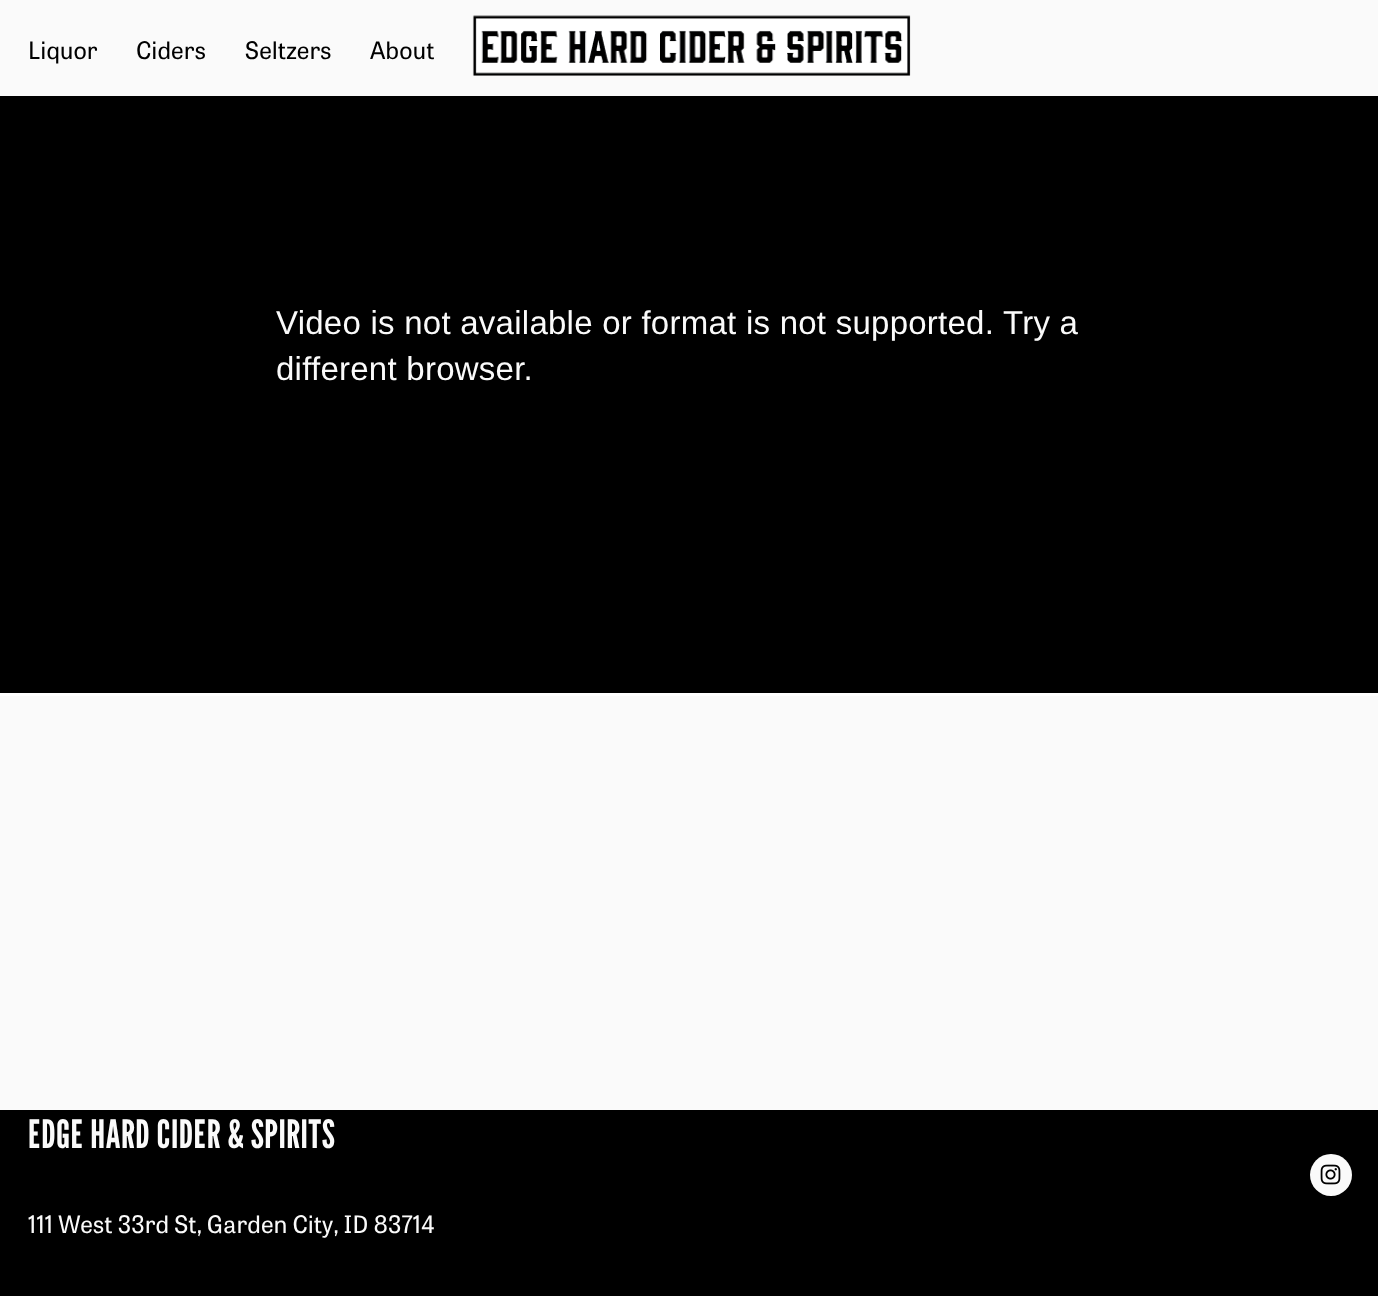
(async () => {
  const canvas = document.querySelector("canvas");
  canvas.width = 1378;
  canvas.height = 1296;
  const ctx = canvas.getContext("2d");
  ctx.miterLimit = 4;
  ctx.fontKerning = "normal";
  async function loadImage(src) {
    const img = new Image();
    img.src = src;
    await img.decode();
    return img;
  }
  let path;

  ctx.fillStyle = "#fafafa";
  ctx.fillRect(0, 0, 1378, 1296);
  ctx.drawImage(await loadImage("img/1.png"), 472, 15, 439, 61);
  ctx.fillStyle = "#000000";
  ctx.fillRect(0, 96, 1378, 597);
  path = new Path2D("M-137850 347.5V1042M0 694.5H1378.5");
  ctx.strokeStyle = "#ffffff";
  ctx.lineWidth = 3;
  ctx.lineCap = "square";
  ctx.stroke(path);
  ctx.fillRect(0, 1110, 1378, 186);
  ctx.fillStyle = "#fafafa";
  ctx.beginPath();
  ctx.arc(1331, 1175, 21, 0, Math.PI * 2);
  ctx.fill();
  ctx.drawImage(await loadImage("img/2.png"), 1320, 1164, 21, 21);
  ctx.letterSpacing = "0.25px";
  ctx.font = "24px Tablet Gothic";
  ctx.fillStyle = "#000000";
  for (const [text, x, y] of [
    ["Liquor", 28, 59],
    ["Ciders", 136, 59],
    ["Seltzers", 245, 59],
    ["About", 370, 59],
  ]) {
    ctx.fillText(text, x, y);
  }
  ctx.font = "33px Liberation Sans";
  ctx.fillStyle = "#fafafa";
  ctx.fillText("Video is not available or format is not supported. Try a", 276, 334);
  ctx.fillText("different browser.", 276, 380);
  ctx.letterSpacing = "0.4px";
  ctx.font = "39px League Gothic";
  ctx.fillText("EDGE HARD CIDER & SPIRITS", 28, 1148);
  ctx.letterSpacing = "0.25px";
  ctx.font = "24px Tablet Gothic";
  ctx.fillText("111 West 33rd St, Garden City, ID 83714", 28, 1233);
})();
